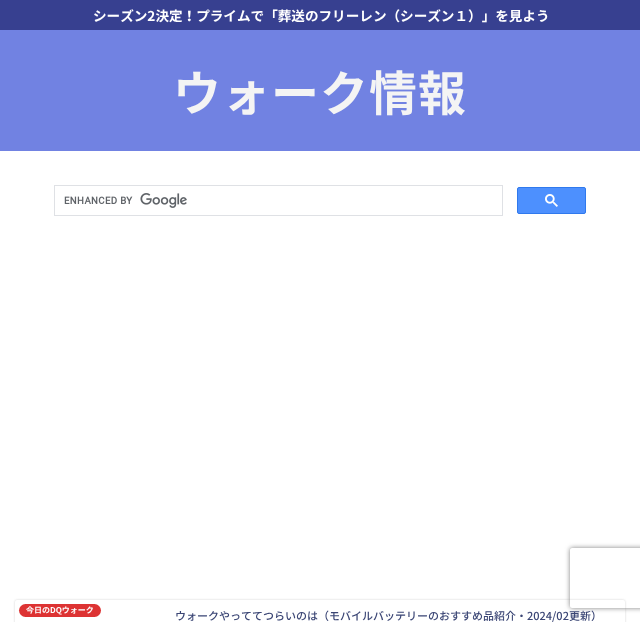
(async () => {
  const canvas = document.querySelector("canvas");
  canvas.width = 640;
  canvas.height = 622;
  const ctx = canvas.getContext("2d");
  ctx.miterLimit = 4;
  ctx.fontKerning = "normal";
  async function loadImage(src) {
    const img = new Image();
    img.src = src;
    await img.decode();
    return img;
  }
  let path;

  ctx.fillStyle = "#ffffff";
  ctx.fillRect(0, 0, 640, 622);
  ctx.fillStyle = "#374090";
  ctx.fillRect(0, 0, 640, 30);
  ctx.fillStyle = "#7182e2";
  ctx.fillRect(0, 30, 640, 121);
  ctx.strokeStyle = "#dfe1e5";
  ctx.strokeRect(54.5, 185.5, 448, 30);
  ctx.drawImage(await loadImage("img/1.png"), 64, 193, 123, 15);
  ctx.fillStyle = "#4d90fe";
  ctx.beginPath();
  ctx.roundRect(517.5, 187.5, 68, 26, 1.5);
  ctx.fill();
  ctx.strokeStyle = "#3079ed";
  ctx.stroke();
  ctx.drawImage(await loadImage("img/2.png"), 545, 194, 13, 13);
  ctx.fillStyle = "rgba(0, 0, 0, 0.18)";
  ctx.filter = "blur(1px)";
  ctx.beginPath();
  ctx.roundRect(15, 600, 610, 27, 2);
  ctx.fill();
  ctx.filter = "none";
  ctx.fillStyle = "#ffffff";
  ctx.beginPath();
  ctx.roundRect(15, 600, 610, 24, 2);
  ctx.fill();
  ctx.fillStyle = "#dd3333";
  ctx.beginPath();
  ctx.roundRect(19, 604, 82, 13, 6.5);
  ctx.fill();
  ctx.save();
  path = new Path2D("M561 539H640V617H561ZM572 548H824C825 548 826 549 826 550V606C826 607 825 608 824 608H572C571 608 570 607 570 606V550C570 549 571 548 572 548Z");
  ctx.clip(path, "evenodd");
  ctx.fillStyle = "#808080";
  ctx.filter = "blur(2.5px)";
  ctx.beginPath();
  ctx.roundRect(570, 548, 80, 60, 2);
  ctx.fill();
  ctx.filter = "none";
  ctx.restore();
  ctx.font = "bold 13.6px Noto Sans JP";
  ctx.fillStyle = "#ffffff";
  ctx.fillText("シーズン2決定！プライムで「葬送のフリーレン（シーズン１）」を見よう", 93, 21);
  ctx.letterSpacing = "1px";
  ctx.font = "bold 48px Noto Sans JP";
  ctx.fillStyle = "#f4f4f4";
  ctx.fillText("ウォーク情報", 173, 111);
  ctx.letterSpacing = "0px";
  ctx.font = "bold 8px Noto Sans JP";
  ctx.fillStyle = "#ffffff";
  ctx.fillText("今日のDQウォーク", 26, 613);
  ctx.font = "500 11px Noto Sans JP";
  ctx.fillStyle = "#3b4675";
  ctx.fillText("ウォークやっててつらいのは（モバイルバッテリーのおすすめ品紹介・2024/02更新）", 175, 620);
})();
